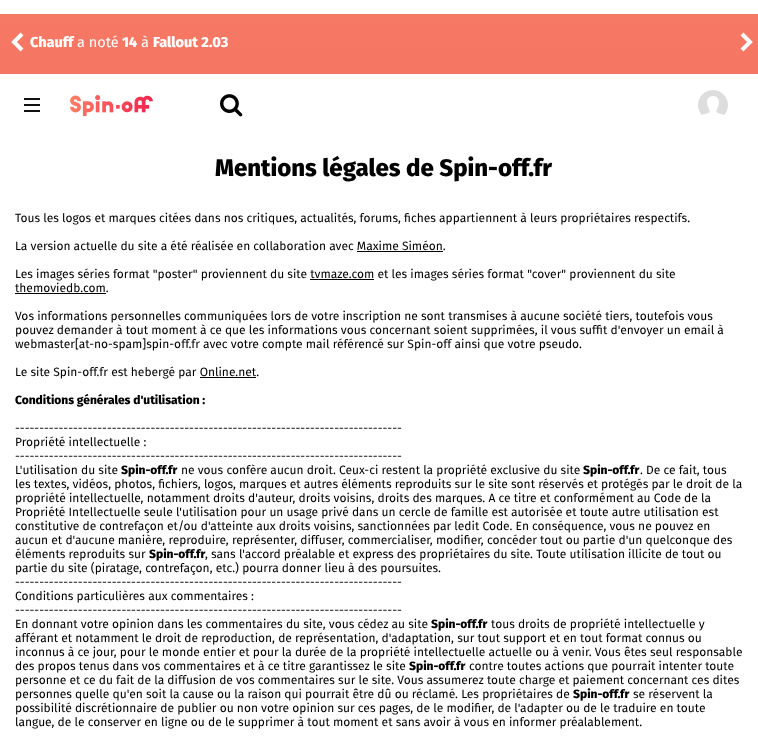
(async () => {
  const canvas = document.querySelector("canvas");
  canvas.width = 758;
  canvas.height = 747;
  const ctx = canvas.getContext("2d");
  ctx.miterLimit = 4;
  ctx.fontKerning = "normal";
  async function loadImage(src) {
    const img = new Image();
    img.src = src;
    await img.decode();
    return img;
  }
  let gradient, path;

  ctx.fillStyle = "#ffffff";
  ctx.fillRect(0, 0, 758, 747);
  gradient = ctx.createLinearGradient(379, 14, 379, 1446);
  gradient.addColorStop(0, "#f67964");
  gradient.addColorStop(1, "#e52951");
  ctx.fillStyle = gradient;
  ctx.fillRect(0, 14, 758, 60);
  path = new Path2D("M22 50L14 42L22 34");
  ctx.strokeStyle = "#ffffff";
  ctx.lineWidth = 4;
  ctx.stroke(path);
  path = new Path2D("M742 34L750 42L742 50");
  ctx.stroke(path);
  for (const [x, y, w, h, color] of [
    [24, 98, 16, 2, "#111111"],
    [24, 104, 16, 2, "#111111"],
    [24, 110, 16, 2, "#111111"],
  ]) {
    ctx.fillStyle = color;
    ctx.fillRect(x, y, w, h);
  }
  ctx.drawImage(await loadImage("img/1.png"), 70, 95, 83, 21);
  ctx.drawImage(await loadImage("img/2.png"), 220, 94, 23, 23);
  ctx.drawImage(await loadImage("img/3.png"), 698, 90, 30, 25);
  for (const [x, y, w, h, color] of [
    [357, 251, 86, 1, "#000000"],
    [310, 279, 64, 1, "#000000"],
    [15, 293, 91, 1, "#000000"],
    [200, 377, 56, 1, "#000000"],
  ]) {
    ctx.fillStyle = color;
    ctx.fillRect(x, y, w, h);
  }
  ctx.font = "800 14.5px Fira Sans";
  ctx.fillStyle = "#ffffff";
  ctx.fillText("Chauff", 30, 47);
  ctx.font = "14.5px Fira Sans";
  ctx.fillText("a noté", 77, 47);
  ctx.font = "800 14.5px Fira Sans";
  ctx.fillText("14", 122, 47);
  ctx.font = "14.5px Fira Sans";
  ctx.fillText("à", 141, 47);
  ctx.font = "800 14.5px Fira Sans";
  ctx.fillText("Fallout 2.03", 153, 47);
  ctx.font = "800 24px Fira Sans";
  ctx.fillStyle = "#000000";
  ctx.fillText("Mentions légales de Spin-off.fr", 215, 176);
  ctx.font = "12px Fira Sans";
  for (const [text, x, y] of [
    ["Tous les logos et marques citées dans nos critiques, actualités, forums, fiches appartiennent à leurs propriétaires respectifs.", 15, 222],
    ["La version actuelle du site a été réalisée en collaboration avec Maxime Siméon.", 15, 250],
    ["Les images séries format \"poster\" proviennent du site tvmaze.com et les images séries format \"cover\" proviennent du site", 15, 278],
    ["themoviedb.com.", 15, 292],
    ["Vos informations personnelles communiquées lors de votre inscription ne sont transmises à aucune société tiers, toutefois vous", 15, 320],
    ["pouvez demander à tout moment à ce que les informations vous concernant soient supprimées, il vous suffit d'envoyer un email à", 15, 334],
    ["webmaster[at-no-spam]spin-off.fr avec votre compte mail référencé sur Spin-off ainsi que votre pseudo.", 15, 348],
    ["Le site Spin-off.fr est hebergé par Online.net.", 15, 376],
  ]) {
    ctx.fillText(text, x, y);
  }
  ctx.font = "800 12px Fira Sans";
  ctx.fillText("Conditions générales d'utilisation :", 15, 404);
  ctx.font = "12px Fira Sans";
  for (const [text, x, y] of [
    ["--------------------------------------------------------------------------------", 15, 432],
    ["Propriété intellectuelle :", 15, 446],
    ["--------------------------------------------------------------------------------", 15, 460],
    ["L'utilisation du site", 15, 474],
  ]) {
    ctx.fillText(text, x, y);
  }
  ctx.font = "800 12px Fira Sans";
  ctx.fillText("Spin-off.fr", 121, 474);
  ctx.font = "12px Fira Sans";
  ctx.fillText("ne vous confère aucun droit. Ceux-ci restent la propriété exclusive du site", 181, 474);
  ctx.font = "800 12px Fira Sans";
  ctx.fillText("Spin-off.fr", 583, 474);
  ctx.font = "12px Fira Sans";
  for (const [text, x, y] of [
    [". De ce fait, tous", 640, 474],
    ["les textes, vidéos, photos, fichiers, logos, marques et autres éléments reproduits sur le site sont réservés et protégés par le droit de la", 15, 488],
    ["propriété intellectuelle, notamment droits d'auteur, droits voisins, droits des marques. A ce titre et conformément au Code de la", 15, 502],
    ["Propriété Intellectuelle seule l'utilisation pour un usage privé dans un cercle de famille est autorisée et toute autre utilisation est", 15, 516],
    ["constitutive de contrefaçon et/ou d'atteinte aux droits voisins, sanctionnées par ledit Code. En conséquence, vous ne pouvez en", 15, 530],
    ["aucun et d'aucune manière, reproduire, représenter, diffuser, commercialiser, modifier, concéder tout ou partie d'un quelconque des", 15, 544],
    ["éléments reproduits sur", 15, 558],
  ]) {
    ctx.fillText(text, x, y);
  }
  ctx.font = "800 12px Fira Sans";
  ctx.fillText("Spin-off.fr", 149, 558);
  ctx.font = "12px Fira Sans";
  for (const [text, x, y] of [
    [", sans l'accord préalable et express des propriétaires du site. Toute utilisation illicite de tout ou", 205, 558],
    ["partie du site (piratage, contrefaçon, etc.) pourra donner lieu à des poursuites.", 15, 572],
    ["--------------------------------------------------------------------------------", 15, 586],
    ["Conditions particulières aux commentaires :", 15, 600],
    ["--------------------------------------------------------------------------------", 15, 614],
    ["En donnant votre opinion dans les commentaires du site, vous cédez au site", 15, 628],
  ]) {
    ctx.fillText(text, x, y);
  }
  ctx.font = "800 12px Fira Sans";
  ctx.fillText("Spin-off.fr", 431, 628);
  ctx.font = "12px Fira Sans";
  for (const [text, x, y] of [
    ["tous droits de propriété intellectuelle y", 491, 628],
    ["afférant et notamment le droit de reproduction, de représentation, d'adaptation, sur tout support et en tout format connus ou", 15, 642],
    ["inconnus à ce jour, pour le monde entier et pour la durée de la propriété intellectuelle actuelle ou à venir. Vous êtes seul responsable", 15, 656],
    ["des propos tenus dans vos commentaires et à ce titre garantissez le site", 15, 670],
  ]) {
    ctx.fillText(text, x, y);
  }
  ctx.font = "800 12px Fira Sans";
  ctx.fillText("Spin-off.fr", 409, 670);
  ctx.font = "12px Fira Sans";
  for (const [text, x, y] of [
    ["contre toutes actions que pourrait intenter toute", 469, 670],
    ["personne et ce du fait de la diffusion de vos commentaires sur le site. Vous assumerez toute charge et paiement concernant ces dites", 15, 684],
    ["personnes quelle qu'en soit la cause ou la raison qui pourrait être dû ou réclamé. Les propriétaires de", 15, 698],
  ]) {
    ctx.fillText(text, x, y);
  }
  ctx.font = "800 12px Fira Sans";
  ctx.fillText("Spin-off.fr", 573, 698);
  ctx.font = "12px Fira Sans";
  for (const [text, x, y] of [
    ["se réservent la", 633, 698],
    ["possibilité discrétionnaire de publier ou non votre opinion sur ces pages, de le modifier, de l'adapter ou de le traduire en toute", 15, 712],
    ["langue, de le conserver en ligne ou de le supprimer à tout moment et sans avoir à vous en informer préalablement.", 15, 726],
  ]) {
    ctx.fillText(text, x, y);
  }
})();
